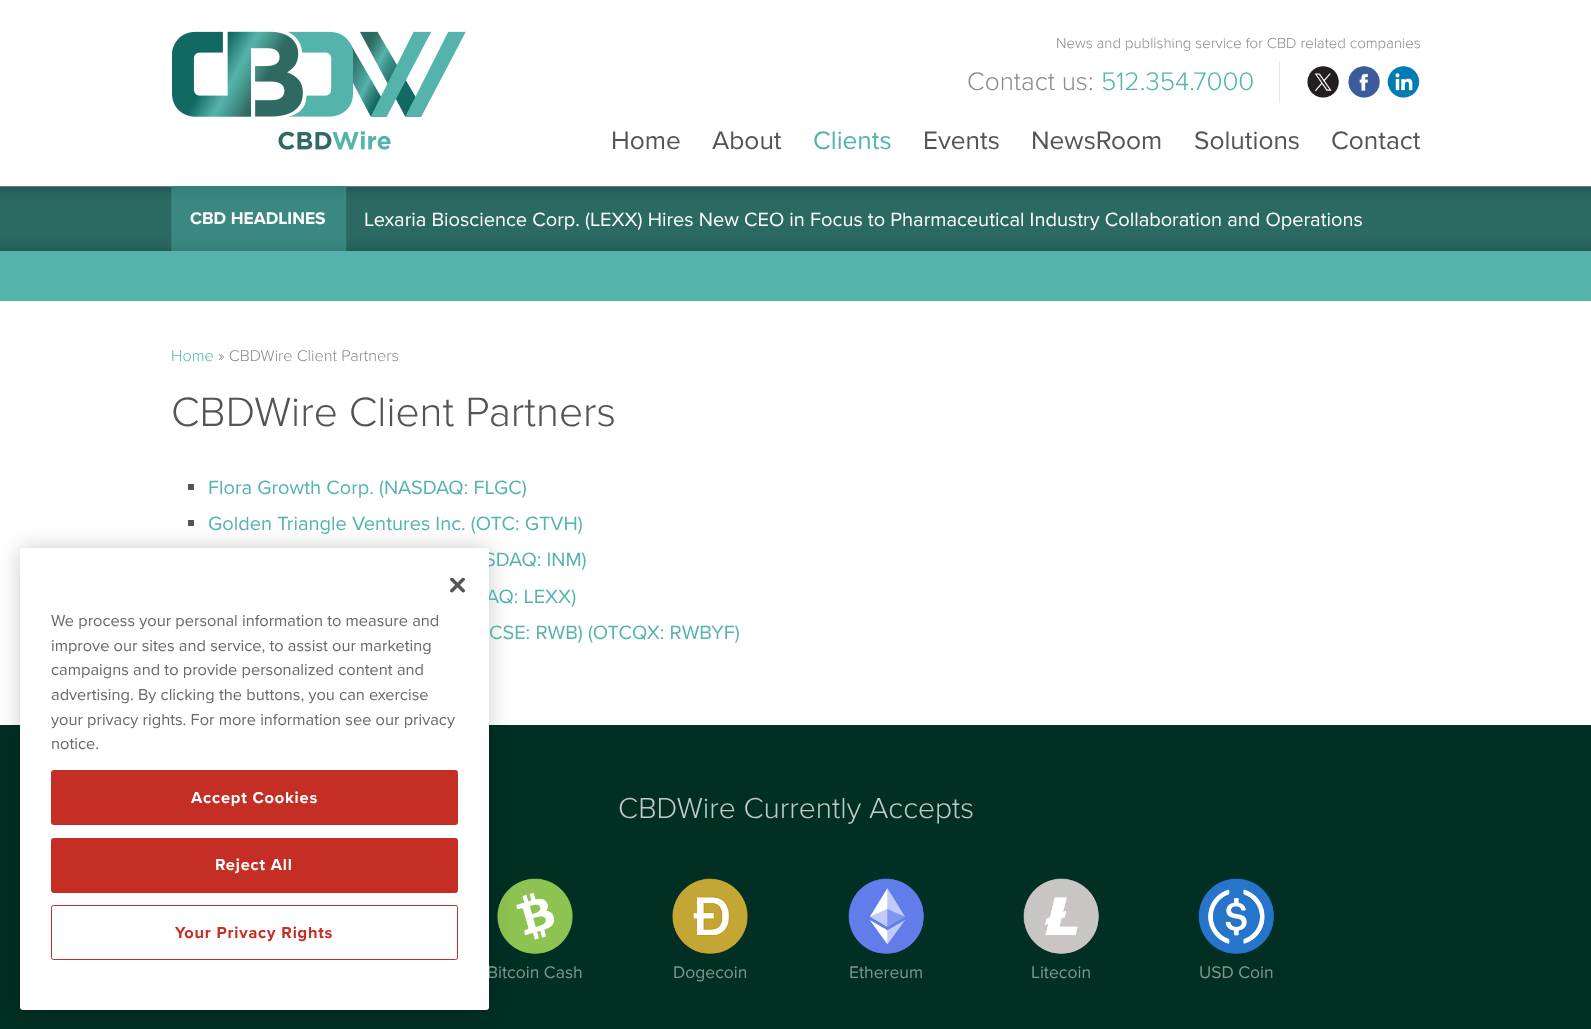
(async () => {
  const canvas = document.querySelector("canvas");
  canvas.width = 1591;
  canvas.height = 1029;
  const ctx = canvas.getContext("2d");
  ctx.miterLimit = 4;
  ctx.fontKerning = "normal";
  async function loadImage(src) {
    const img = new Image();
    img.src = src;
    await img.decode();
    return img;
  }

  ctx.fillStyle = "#ffffff";
  ctx.fillRect(0, 0, 1591, 1029);
  ctx.drawImage(await loadImage("img/1.png"), 172, 31, 294, 119);
  ctx.fillStyle = "#e6e6e6";
  ctx.fillRect(1279, 61, 1, 42);
  ctx.drawImage(await loadImage("img/2.png"), 1307, 66, 32, 32);
  ctx.drawImage(await loadImage("img/3.png"), 1348, 66, 32, 32);
  ctx.drawImage(await loadImage("img/4.png"), 1387, 66, 33, 32);
  ctx.drawImage(await loadImage("img/5.png"), 0, 186, 1591, 65);
  ctx.drawImage(await loadImage("img/6.png"), 171, 186, 176, 65);
  for (const [x, y, w, h, color] of [
    [0, 251, 1591, 50, "#54b4ac"],
    [188, 484, 6, 6, "#545454"],
    [188, 520, 6, 6, "#545454"],
    [0, 725, 1591, 304, "#012f23"],
  ]) {
    ctx.fillStyle = color;
    ctx.fillRect(x, y, w, h);
  }
  ctx.drawImage(await loadImage("img/8.png"), 497, 878, 76, 76);
  ctx.fillStyle = "rgba(0, 0, 0, 0.2)";
  ctx.filter = "blur(11px)";
  ctx.beginPath();
  ctx.roundRect(20, 548, 469, 462, 3);
  ctx.fill();
  ctx.filter = "none";
  ctx.drawImage(await loadImage("img/9.png"), 672, 878, 76, 76);
  ctx.drawImage(await loadImage("img/10.png"), 848, 878, 76, 76);
  ctx.drawImage(await loadImage("img/11.png"), 1023, 878, 76, 76);
  ctx.drawImage(await loadImage("img/12.png"), 1198, 878, 76, 76);
  ctx.font = "300 15px Proxima Nova";
  ctx.fillStyle = "#8a8a8d";
  ctx.fillText("News and publishing service for CBD related companies", 1056, 48);
  ctx.font = "300 26.25px Proxima Nova";
  ctx.fillText("Contact us:", 967, 90);
  ctx.fillStyle = "#54b4ac";
  ctx.fillText("512.354.7000", 1101, 90);
  ctx.font = "26.25px Proxima Nova";
  ctx.fillStyle = "#545454";
  ctx.fillText("Home", 611, 149);
  ctx.fillText("About", 712, 149);
  ctx.fillStyle = "#54b4ac";
  ctx.fillText("Clients", 813, 149);
  ctx.fillStyle = "#545454";
  for (const [text, x, y] of [
    ["Events", 923, 149],
    ["NewsRoom", 1031, 149],
    ["Solutions", 1194, 149],
    ["Contact", 1331, 149],
  ]) {
    ctx.fillText(text, x, y);
  }
  ctx.font = "bold 17.5px Proxima Nova";
  ctx.fillStyle = "#ffffff";
  ctx.fillText("CBD HEADLINES", 190, 224);
  ctx.font = "20px Proxima Nova";
  ctx.fillText("Lexaria Bioscience Corp. (LEXX) Hires New CEO in Focus to Pharmaceutical Industry Collaboration and Operations", 364, 226);
  ctx.font = "300 16.25px Proxima Nova";
  ctx.fillStyle = "#54b4ac";
  ctx.fillText("Home", 171, 361);
  ctx.fillStyle = "#8a8a8d";
  ctx.fillText("» CBDWire Client Partners", 218, 361);
  ctx.font = "300 42.5px Proxima Nova";
  ctx.fillStyle = "#545454";
  ctx.fillText("CBDWire Client Partners", 171, 426);
  ctx.font = "20px Proxima Nova";
  ctx.fillStyle = "#54b4ac";
  for (const [text, x, y] of [
    ["Flora Growth Corp. (NASDAQ: FLGC)", 208, 494],
    ["Golden Triangle Ventures Inc. (OTC: GTVH)", 208, 530],
    ["SDAQ: INM)", 484, 566],
    ["AQ: LEXX)", 486, 603],
    ["CSE: RWB) (OTCQX: RWBYF)", 489, 639],
  ]) {
    ctx.fillText(text, x, y);
  }
  ctx.font = "300 30px Proxima Nova";
  ctx.fillStyle = "#c0cbc8";
  ctx.fillText("CBDWire Currently Accepts", 618, 818);
  ctx.font = "17.5px Proxima Nova";
  ctx.fillStyle = "#809791";
  ctx.fillText("Bitcoin Cash", 487, 978);
  ctx.fillStyle = "#ffffff";
  ctx.beginPath();
  ctx.roundRect(20, 548, 469, 462, 3);
  ctx.fill();
  ctx.drawImage(await loadImage("img/7.png"), 450, 578, 15, 15);
  ctx.beginPath();
  ctx.roundRect(51.5, 905.5, 406, 54, 2);
  ctx.strokeStyle = "#c42e24";
  ctx.stroke();
  ctx.letterSpacing = "0.8px";
  ctx.font = "bold 16.4px Proxima Nova";
  ctx.fillStyle = "#c42e24";
  ctx.fillText("Your Privacy Rights", 175, 938);
  ctx.beginPath();
  ctx.roundRect(51.5, 838.5, 406, 54, 2);
  ctx.fill();
  ctx.stroke();
  ctx.fillStyle = "#ffffff";
  ctx.fillText("Reject All", 215, 870);
  ctx.fillStyle = "#c42e24";
  ctx.beginPath();
  ctx.roundRect(51.5, 770.5, 406, 54, 2);
  ctx.fill();
  ctx.stroke();
  ctx.fillStyle = "#ffffff";
  ctx.fillText("Accept Cookies", 191, 803);
  ctx.letterSpacing = "0px";
  ctx.font = "16.4px Proxima Nova";
  ctx.fillStyle = "#696969";
  for (const [text, x, y] of [
    ["notice.", 51, 749],
    ["your privacy rights. For more information see our privacy", 51, 725],
    ["advertising. By clicking the buttons, you can exercise", 51, 700],
    ["campaigns and to provide personalized content and", 51, 675],
    ["improve our sites and service, to assist our marketing", 51, 651],
    ["We process your personal information to measure and", 51, 626],
  ]) {
    ctx.fillText(text, x, y);
  }
  ctx.font = "17.5px Proxima Nova";
  ctx.fillStyle = "#809791";
  for (const [text, x, y] of [
    ["Dogecoin", 673, 978],
    ["Ethereum", 849, 978],
    ["Litecoin", 1031, 978],
    ["USD Coin", 1199, 978],
  ]) {
    ctx.fillText(text, x, y);
  }
})();
